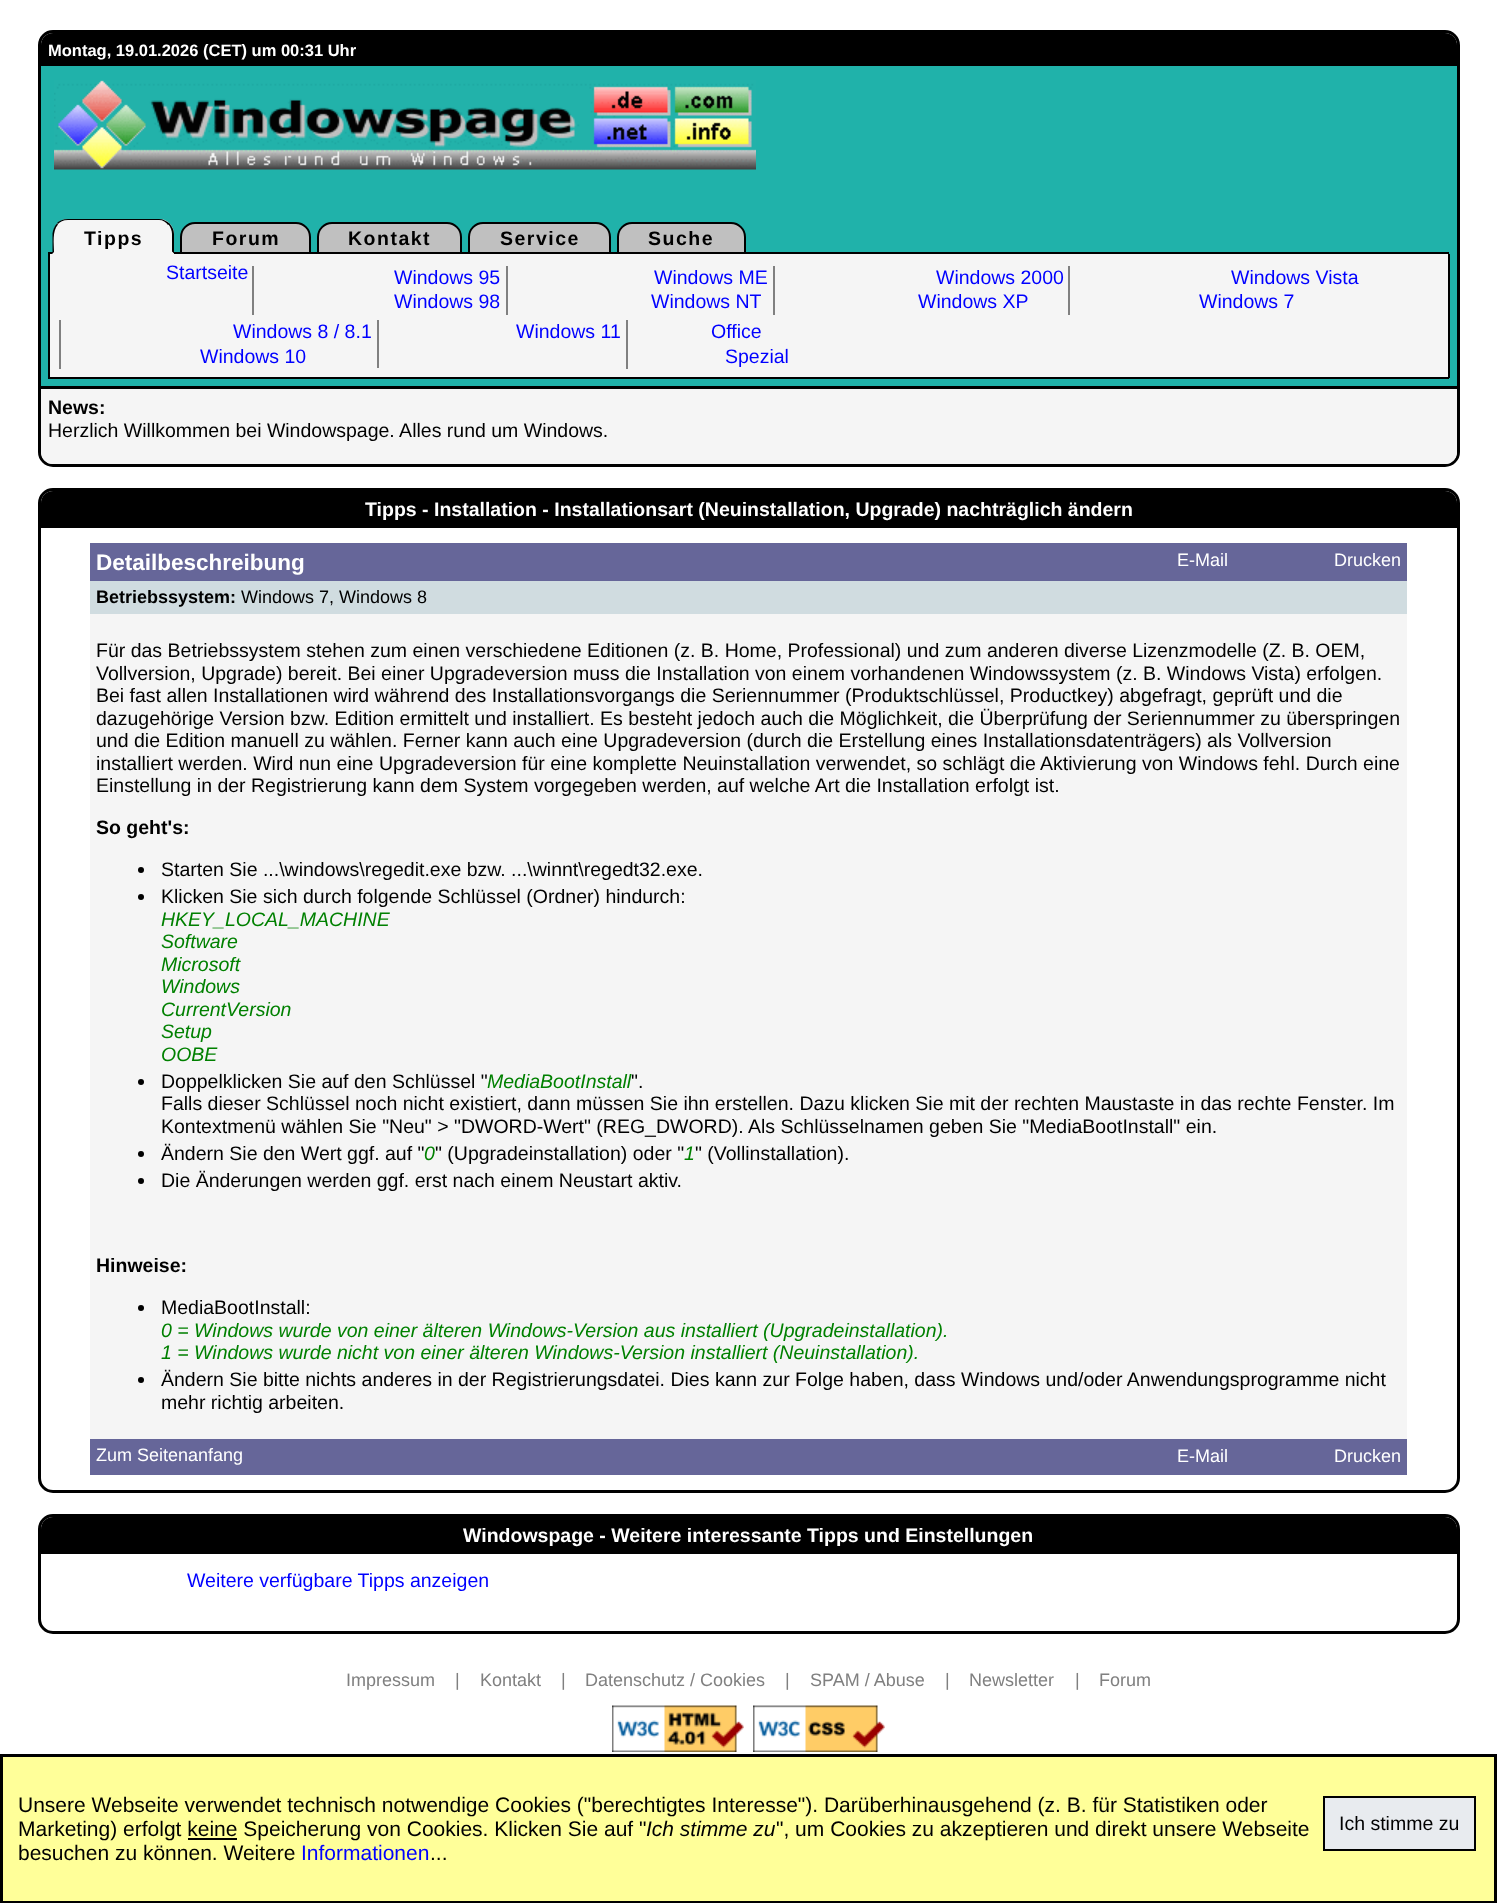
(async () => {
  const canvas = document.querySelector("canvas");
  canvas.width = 1497;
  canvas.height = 1903;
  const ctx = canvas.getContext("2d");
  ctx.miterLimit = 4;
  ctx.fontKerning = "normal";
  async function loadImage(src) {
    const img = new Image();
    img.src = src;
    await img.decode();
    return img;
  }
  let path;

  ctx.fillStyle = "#ffffff";
  ctx.fillRect(0, 0, 1497, 1903);
  ctx.beginPath();
  ctx.roundRect(39.5, 31.5, 1419, 434, 13.5);
  ctx.strokeStyle = "#000000";
  ctx.lineWidth = 3;
  ctx.stroke();
  ctx.fillStyle = "#000000";
  ctx.beginPath();
  ctx.roundRect(41, 33, 1416, 33, [12, 12, 0, 0]);
  ctx.fill();
  ctx.fillStyle = "#20b2aa";
  ctx.fillRect(41, 66, 1416, 320);
  ctx.drawImage(await loadImage("img/1.png"), 54, 80, 702, 90);
  ctx.fillStyle = "#000000";
  ctx.fillRect(48, 252, 1401, 2);
  ctx.fillStyle = "#f5f5f5";
  ctx.beginPath();
  ctx.roundRect(53, 219, 121, 35, [15, 15, 0, 0]);
  ctx.fill();
  ctx.fillStyle = "#000000";
  path = new Path2D("M68 219C63 219 59 221 57 223L58 224C60 222 63 220 68 220H159C163 220 166 222 168 225L170 224C167 221 163 219 159 219Z");
  ctx.fill(path);
  path = new Path2D("M174 253.5V234C174 230 172 226 169.5 223.5L168.5 224.5C170.5 227 172 230.5 172 234V251.5Z");
  ctx.fill(path);
  ctx.fillStyle = "#f5f5f5";
  path = new Path2D("M174 254L172 252H54L52 254Z");
  ctx.fill(path);
  ctx.fillStyle = "#000000";
  path = new Path2D("M52.5 253.5V233.5C53 229.5 54.5 226 57 223.5L58 224.5C52 231.5 54 243.5 54 252Z");
  ctx.fill(path);
  ctx.fillStyle = "#c0c0c0";
  ctx.beginPath();
  ctx.roundRect(181, 223, 129, 30, [14, 14, 0, 0]);
  ctx.fill();
  ctx.lineWidth = 2;
  ctx.stroke();
  ctx.beginPath();
  ctx.roundRect(318, 223, 143, 30, [14, 14, 0, 0]);
  ctx.fill();
  ctx.stroke();
  ctx.beginPath();
  ctx.roundRect(469, 223, 141, 30, [14, 14, 0, 0]);
  ctx.fill();
  ctx.stroke();
  ctx.beginPath();
  ctx.roundRect(618, 223, 127, 30, [14, 14, 0, 0]);
  ctx.fill();
  ctx.stroke();
  for (const [x, y, w, h, color] of [
    [50, 254, 1398, 123, "#f5f5f5"],
    [1448, 254, 2, 124, "#000000"],
    [48, 377, 1401, 2, "#000000"],
    [48, 254, 2, 124, "#000000"],
    [252, 266, 2, 49, "#808080"],
    [506, 266, 2, 49, "#808080"],
    [773, 266, 2, 49, "#808080"],
    [1068, 266, 2, 49, "#808080"],
    [59, 320, 2, 49, "#808080"],
    [377, 320, 2, 48, "#808080"],
    [626, 320, 2, 49, "#808080"],
  ]) {
    ctx.fillStyle = color;
    ctx.fillRect(x, y, w, h);
  }
  ctx.fillStyle = "#f5f5f5";
  ctx.beginPath();
  ctx.roundRect(41, 386, 1416, 78, [0, 0, 12, 12]);
  ctx.fill();
  ctx.fillStyle = "#000000";
  ctx.fillRect(41, 386, 1416, 3);
  ctx.beginPath();
  ctx.roundRect(39.5, 489.5, 1419, 1002, 13.5);
  ctx.lineWidth = 3;
  ctx.stroke();
  ctx.beginPath();
  ctx.roundRect(41, 491, 1416, 37, [12, 12, 0, 0]);
  ctx.fill();
  for (const [x, y, w, h, color] of [
    [90, 543, 1317, 38, "#666699"],
    [90, 581, 1317, 33, "#d0dce0"],
    [90, 614, 1317, 825, "#f5f5f5"],
  ]) {
    ctx.fillStyle = color;
    ctx.fillRect(x, y, w, h);
  }
  ctx.fillStyle = "#000000";
  ctx.beginPath();
  ctx.arc(141, 870, 3, 0, Math.PI * 2);
  ctx.fill();
  ctx.beginPath();
  ctx.arc(141, 897, 3, 0, Math.PI * 2);
  ctx.fill();
  ctx.beginPath();
  ctx.arc(141, 1082, 3, 0, Math.PI * 2);
  ctx.fill();
  ctx.beginPath();
  ctx.arc(141, 1154, 3, 0, Math.PI * 2);
  ctx.fill();
  ctx.beginPath();
  ctx.arc(141, 1181, 3, 0, Math.PI * 2);
  ctx.fill();
  ctx.beginPath();
  ctx.arc(141, 1308, 3, 0, Math.PI * 2);
  ctx.fill();
  ctx.beginPath();
  ctx.arc(141, 1380, 3, 0, Math.PI * 2);
  ctx.fill();
  ctx.fillStyle = "#666699";
  ctx.fillRect(90, 1439, 1317, 36);
  ctx.beginPath();
  ctx.roundRect(39.5, 1515.5, 1419, 117, 13.5);
  ctx.stroke();
  ctx.fillStyle = "#000000";
  ctx.beginPath();
  ctx.roundRect(41, 1517, 1416, 37, [12, 12, 0, 0]);
  ctx.fill();
  ctx.drawImage(await loadImage("img/2.png"), 612, 1705, 132, 47);
  ctx.drawImage(await loadImage("img/3.png"), 753, 1705, 132, 47);
  ctx.fillStyle = "#ffff99";
  ctx.beginPath();
  ctx.rect(1.5, 1755.5, 1494, 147);
  ctx.fill();
  ctx.stroke();
  ctx.fillStyle = "#000000";
  ctx.fillRect(188, 1838, 49, 2);
  ctx.fillStyle = "#e8ebef";
  ctx.beginPath();
  ctx.rect(1324, 1797, 151, 53);
  ctx.fill();
  ctx.lineWidth = 2;
  ctx.stroke();
  ctx.font = "bold 16.5px Liberation Sans";
  ctx.fillStyle = "#ffffff";
  ctx.fillText("Montag, 19.01.2026 (CET) um 00:31 Uhr", 48, 56);
  ctx.letterSpacing = "1.5px";
  ctx.font = "bold 19.5px Liberation Sans";
  ctx.fillStyle = "#000000";
  for (const [text, x, y] of [
    ["Tipps", 84, 245],
    ["Forum", 212, 245],
    ["Kontakt", 348, 245],
    ["Service", 500, 245],
    ["Suche", 648, 245],
  ]) {
    ctx.fillText(text, x, y);
  }
  ctx.letterSpacing = "0px";
  ctx.font = "19.5px Liberation Sans";
  ctx.fillStyle = "#0000ff";
  for (const [text, x, y] of [
    ["Startseite", 166, 279],
    ["Windows 95", 394, 284],
    ["Windows 98", 394, 308],
    ["Windows ME", 654, 284],
    ["Windows NT", 651, 308],
    ["Windows 2000", 936, 284],
    ["Windows XP", 918, 308],
    ["Windows Vista", 1231, 284],
    ["Windows 7", 1199, 308],
    ["Windows 8 / 8.1", 233, 338],
    ["Windows 10", 200, 363],
    ["Windows 11", 516, 338],
    ["Office", 711, 338],
    ["Spezial", 725, 363],
  ]) {
    ctx.fillText(text, x, y);
  }
  ctx.font = "bold 19.5px Liberation Sans";
  ctx.fillStyle = "#000000";
  ctx.fillText("News:", 48, 414);
  ctx.font = "19.5px Liberation Sans";
  ctx.fillText("Herzlich Willkommen bei Windowspage. Alles rund um Windows.", 48, 437);
  ctx.font = "bold 19.5px Liberation Sans";
  ctx.fillStyle = "#ffffff";
  ctx.fillText("Tipps - Installation - Installationsart (Neuinstallation, Upgrade) nachträglich ändern", 365, 516);
  ctx.font = "bold 22.5px Liberation Sans";
  ctx.fillText("Detailbeschreibung", 96, 570);
  ctx.font = "18px Liberation Sans";
  ctx.fillText("E-Mail", 1177, 566);
  ctx.fillText("Drucken", 1334, 566);
  ctx.font = "bold 18px Liberation Sans";
  ctx.fillStyle = "#000000";
  ctx.fillText("Betriebssystem:", 96, 603);
  ctx.font = "18px Liberation Sans";
  ctx.fillText("Windows 7, Windows 8", 241, 603);
  ctx.font = "19.5px Liberation Sans";
  for (const [text, x, y] of [
    ["Für das Betriebssystem stehen zum einen verschiedene Editionen (z. B. Home, Professional) und zum anderen diverse Lizenzmodelle (Z. B. OEM,", 96, 657],
    ["Vollversion, Upgrade) bereit. Bei einer Upgradeversion muss die Installation von einem vorhandenen Windowssystem (z. B. Windows Vista) erfolgen.", 96, 680],
    ["Bei fast allen Installationen wird während des Installationsvorgangs die Seriennummer (Produktschlüssel, Productkey) abgefragt, geprüft und die", 96, 702],
    ["dazugehörige Version bzw. Edition ermittelt und installiert. Es besteht jedoch auch die Möglichkeit, die Überprüfung der Seriennummer zu überspringen", 96, 725],
    ["und die Edition manuell zu wählen. Ferner kann auch eine Upgradeversion (durch die Erstellung eines Installationsdatenträgers) als Vollversion", 96, 747],
    ["installiert werden. Wird nun eine Upgradeversion für eine komplette Neuinstallation verwendet, so schlägt die Aktivierung von Windows fehl. Durch eine", 96, 770],
    ["Einstellung in der Registrierung kann dem System vorgegeben werden, auf welche Art die Installation erfolgt ist.", 96, 792],
  ]) {
    ctx.fillText(text, x, y);
  }
  ctx.font = "bold 19.5px Liberation Sans";
  ctx.fillText("So geht's:", 96, 834);
  ctx.font = "19.5px Liberation Sans";
  ctx.fillText("Starten Sie ...\\windows\\regedit.exe bzw. ...\\winnt\\regedt32.exe.", 161, 876);
  ctx.fillText("Klicken Sie sich durch folgende Schlüssel (Ordner) hindurch:", 161, 903);
  ctx.font = "italic 19.5px Liberation Sans";
  ctx.fillStyle = "#008000";
  for (const [text, x, y] of [
    ["HKEY_LOCAL_MACHINE", 161, 926],
    ["Software", 161, 948],
    ["Microsoft", 161, 971],
    ["Windows", 161, 993],
    ["CurrentVersion", 161, 1016],
    ["Setup", 161, 1038],
    ["OOBE", 161, 1061],
  ]) {
    ctx.fillText(text, x, y);
  }
  ctx.font = "19.5px Liberation Sans";
  ctx.fillStyle = "#000000";
  ctx.fillText("Doppelklicken Sie auf den Schlüssel \"", 161, 1088);
  ctx.font = "italic 19.5px Liberation Sans";
  ctx.fillStyle = "#008000";
  ctx.fillText("MediaBootInstall", 487, 1088);
  ctx.font = "19.5px Liberation Sans";
  ctx.fillStyle = "#000000";
  for (const [text, x, y] of [
    ["\".", 631, 1088],
    ["Falls dieser Schlüssel noch nicht existiert, dann müssen Sie ihn erstellen. Dazu klicken Sie mit der rechten Maustaste in das rechte Fenster. Im", 161, 1110],
    ["Kontextmenü wählen Sie \"Neu\" > \"DWORD-Wert\" (REG_DWORD). Als Schlüsselnamen geben Sie \"MediaBootInstall\" ein.", 161, 1133],
    ["Ändern Sie den Wert ggf. auf \"", 161, 1160],
  ]) {
    ctx.fillText(text, x, y);
  }
  ctx.font = "italic 19.5px Liberation Sans";
  ctx.fillStyle = "#008000";
  ctx.fillText("0", 424, 1160);
  ctx.font = "19.5px Liberation Sans";
  ctx.fillStyle = "#000000";
  ctx.fillText("\" (Upgradeinstallation) oder \"", 435, 1160);
  ctx.font = "italic 19.5px Liberation Sans";
  ctx.fillStyle = "#008000";
  ctx.fillText("1", 684, 1160);
  ctx.font = "19.5px Liberation Sans";
  ctx.fillStyle = "#000000";
  ctx.fillText("\" (Vollinstallation).", 695, 1160);
  ctx.fillText("Die Änderungen werden ggf. erst nach einem Neustart aktiv.", 161, 1187);
  ctx.font = "bold 19.5px Liberation Sans";
  ctx.fillText("Hinweise:", 96, 1272);
  ctx.font = "19.5px Liberation Sans";
  ctx.fillText("MediaBootInstall:", 161, 1314);
  ctx.font = "italic 19.5px Liberation Sans";
  ctx.fillStyle = "#008000";
  ctx.fillText("0 = Windows wurde von einer älteren Windows-Version aus installiert (Upgradeinstallation).", 161, 1337);
  ctx.fillText("1 = Windows wurde nicht von einer älteren Windows-Version installiert (Neuinstallation).", 161, 1359);
  ctx.font = "19.5px Liberation Sans";
  ctx.fillStyle = "#000000";
  ctx.fillText("Ändern Sie bitte nichts anderes in der Registrierungsdatei. Dies kann zur Folge haben, dass Windows und/oder Anwendungsprogramme nicht", 161, 1386);
  ctx.fillText("mehr richtig arbeiten.", 161, 1409);
  ctx.font = "18px Liberation Sans";
  ctx.fillStyle = "#ffffff";
  for (const [text, x, y] of [
    ["Zum Seitenanfang", 96, 1461],
    ["E-Mail", 1177, 1462],
    ["Drucken", 1334, 1462],
  ]) {
    ctx.fillText(text, x, y);
  }
  ctx.font = "bold 19.5px Liberation Sans";
  ctx.fillText("Windowspage - Weitere interessante Tipps und Einstellungen", 463, 1542);
  ctx.font = "19.5px Liberation Sans";
  ctx.fillStyle = "#0000ff";
  ctx.fillText("Weitere verfügbare Tipps anzeigen", 187, 1587);
  ctx.font = "18px Liberation Sans";
  ctx.fillStyle = "#808080";
  for (const [text, x, y] of [
    ["Impressum", 346, 1686],
    ["|", 455, 1686],
    ["Kontakt", 480, 1686],
    ["|", 561, 1686],
    ["Datenschutz / Cookies", 585, 1686],
    ["|", 785, 1686],
    ["SPAM / Abuse", 810, 1686],
    ["|", 945, 1686],
    ["Newsletter", 969, 1686],
    ["|", 1075, 1686],
    ["Forum", 1099, 1686],
  ]) {
    ctx.fillText(text, x, y);
  }
  ctx.font = "21px Liberation Sans";
  ctx.fillStyle = "#000000";
  ctx.fillText("Unsere Webseite verwendet technisch notwendige Cookies (\"berechtigtes Interesse\"). Darüberhinausgehend (z. B. für Statistiken oder", 18, 1812);
  ctx.fillText("Marketing) erfolgt keine Speicherung von Cookies. Klicken Sie auf \"", 18, 1836);
  ctx.font = "italic 21px Liberation Sans";
  ctx.fillText("Ich stimme zu", 646, 1836);
  ctx.font = "21px Liberation Sans";
  ctx.fillText("\", um Cookies zu akzeptieren und direkt unsere Webseite", 776, 1836);
  ctx.fillText("besuchen zu können. Weitere", 18, 1860);
  ctx.fillStyle = "#0000ff";
  ctx.fillText("Informationen", 301, 1860);
  ctx.fillStyle = "#000000";
  ctx.fillText("...", 430, 1860);
  ctx.font = "19.5px Liberation Sans";
  ctx.fillText("Ich stimme zu", 1339, 1830);
})();
